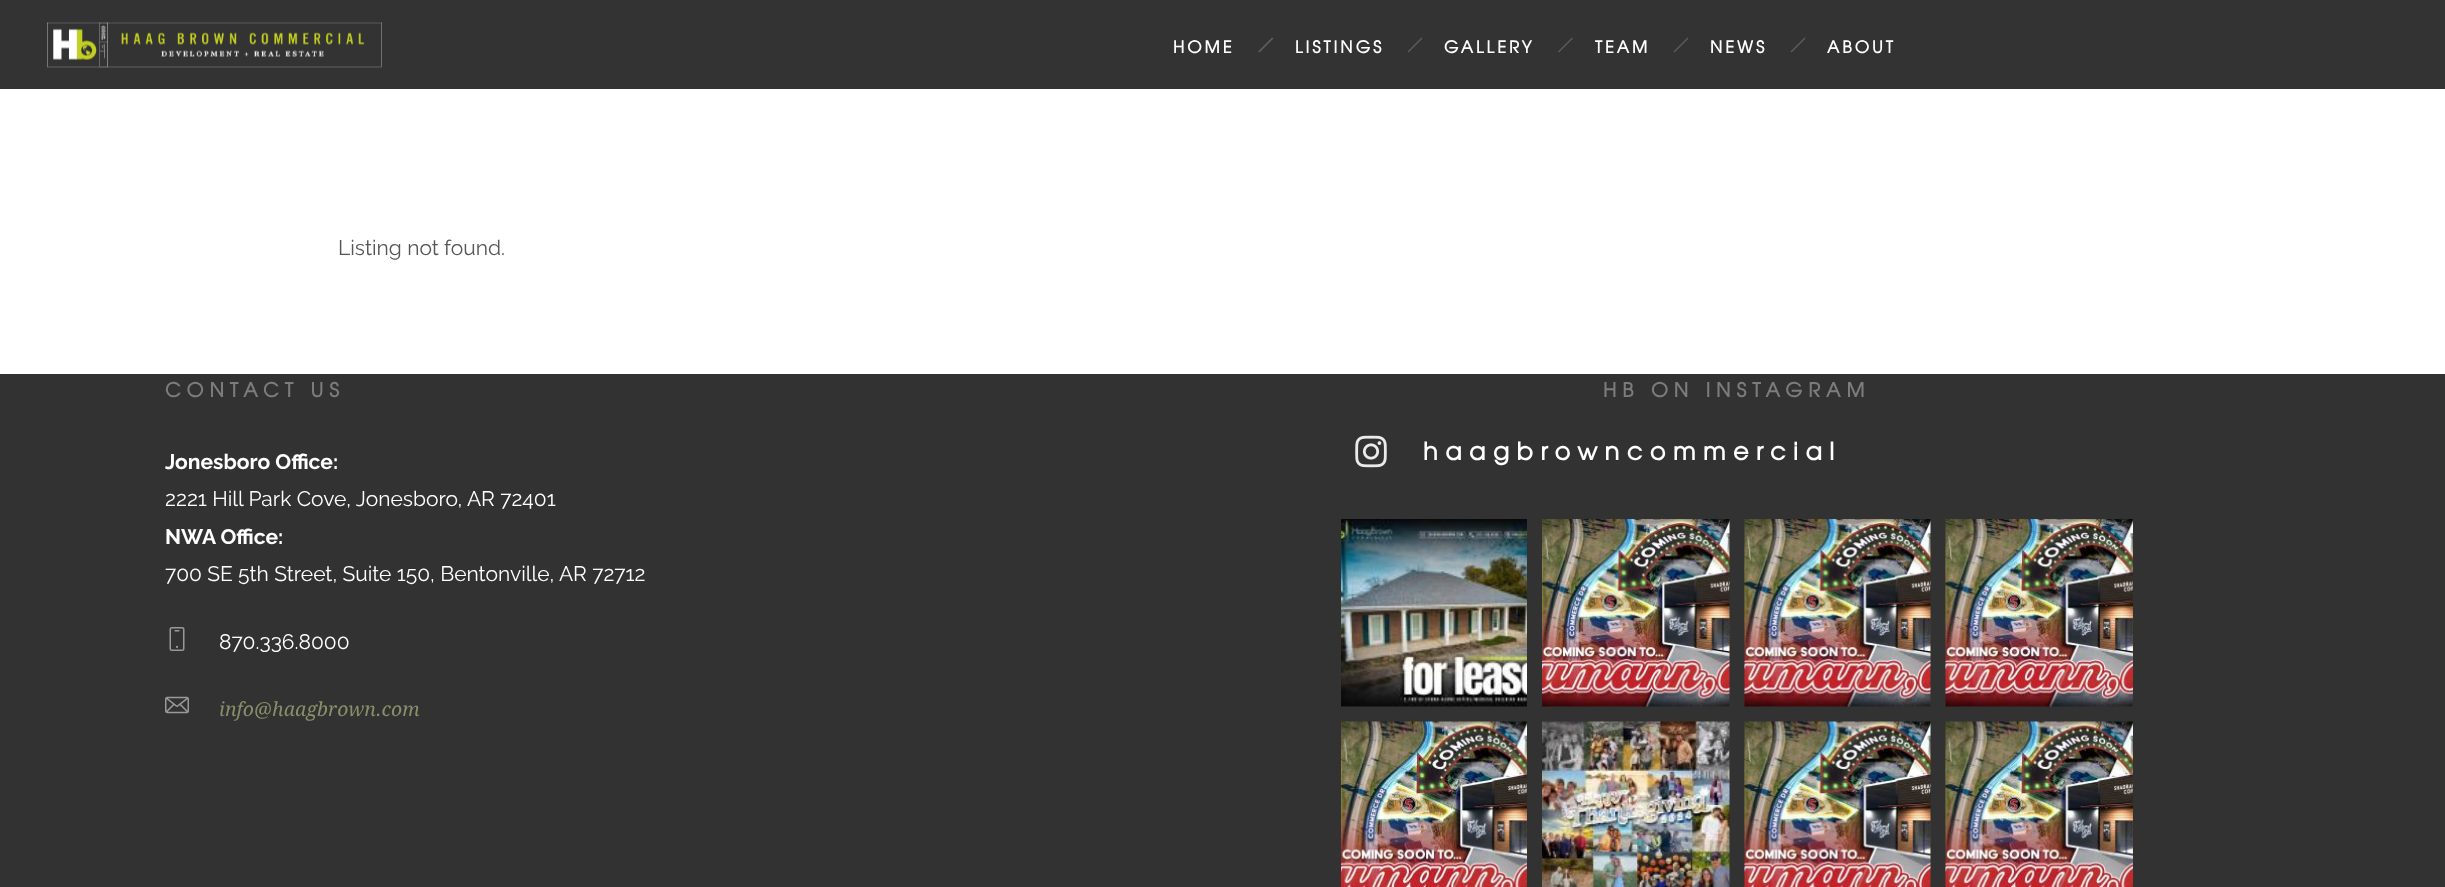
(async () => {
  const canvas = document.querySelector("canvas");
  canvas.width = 2445;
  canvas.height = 887;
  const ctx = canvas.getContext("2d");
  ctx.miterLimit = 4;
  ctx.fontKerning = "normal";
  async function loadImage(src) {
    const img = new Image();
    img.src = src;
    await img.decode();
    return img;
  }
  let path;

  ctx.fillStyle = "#ffffff";
  ctx.fillRect(0, 0, 2445, 887);
  ctx.fillStyle = "#333333";
  ctx.fillRect(0, 0, 2445, 89);
  ctx.drawImage(await loadImage("img/1.png"), 47, 22, 335, 46);
  ctx.fillStyle = "#5c5c5c";
  path = new Path2D("M1272 37.5L1273.5 38.5L1259.5 52.5L1258 51.5Z");
  ctx.fill(path);
  path = new Path2D("M1421.5 37.5L1422.5 38.5L1408.5 52.5L1407.5 51.5Z");
  ctx.fill(path);
  path = new Path2D("M1572 37.5L1573 38.5L1559 52.5L1558 51.5Z");
  ctx.fill(path);
  path = new Path2D("M1687.5 37.5L1688.5 38.5L1674.5 52.5L1673.5 51.5Z");
  ctx.fill(path);
  path = new Path2D("M1804.5 37.5L1805.5 38.5L1791.5 52.5L1790.5 51.5Z");
  ctx.fill(path);
  ctx.fillStyle = "#323232";
  ctx.fillRect(0, 374, 2445, 513);
  ctx.drawImage(await loadImage("img/2.png"), 169, 627, 16, 24);
  ctx.drawImage(await loadImage("img/3.png"), 165, 696, 24, 18);
  ctx.drawImage(await loadImage("img/4.png"), 1355, 435, 32, 33);
  ctx.drawImage(await loadImage("img/5.png"), 1341, 519, 186, 188);
  ctx.drawImage(await loadImage("img/6.png"), 1542, 519, 188, 188);
  ctx.drawImage(await loadImage("img/7.png"), 1744, 519, 187, 188);
  ctx.drawImage(await loadImage("img/8.png"), 1945, 519, 188, 188);
  ctx.drawImage(await loadImage("img/9.png"), 1341, 721, 186, 166);
  ctx.drawImage(await loadImage("img/10.png"), 1542, 721, 188, 166);
  ctx.drawImage(await loadImage("img/11.png"), 1744, 721, 187, 166);
  ctx.drawImage(await loadImage("img/12.png"), 1945, 721, 188, 166);
  ctx.letterSpacing = "3px";
  ctx.font = "bold 16.5px TeX Gyre Adventor";
  ctx.fillStyle = "#ffffff";
  for (const [text, x, y] of [
    ["HOME", 1173, 53],
    ["LISTINGS", 1295, 53],
    ["GALLERY", 1444, 53],
    ["TEAM", 1595, 53],
    ["NEWS", 1710, 53],
    ["ABOUT", 1827, 53],
  ]) {
    ctx.fillText(text, x, y);
  }
  ctx.letterSpacing = "0px";
  ctx.font = "21px Raleway";
  ctx.fillStyle = "#565656";
  ctx.fillText("Listing not found.", 338, 255);
  ctx.letterSpacing = "6px";
  ctx.font = "bold 19.5px TeX Gyre Adventor";
  ctx.fillStyle = "#7c7c7c";
  ctx.fillText("CONTACT US", 165, 397);
  ctx.letterSpacing = "0px";
  ctx.font = "bold 21px Raleway";
  ctx.fillStyle = "#ffffff";
  ctx.fillText("Jonesboro Office:", 165, 469);
  ctx.font = "21px Raleway";
  ctx.fillText("2221 Hill Park Cove, Jonesboro, AR 72401", 165, 506);
  ctx.font = "bold 21px Raleway";
  ctx.fillText("NWA Office:", 165, 544);
  ctx.font = "21px Raleway";
  ctx.fillText("700 SE 5th Street, Suite 150, Bentonville, AR 72712", 165, 581);
  ctx.fillText("870.336.8000", 219, 649);
  ctx.font = "italic 19.5px Droid Serif";
  ctx.fillStyle = "#8a8f6a";
  ctx.fillText("info@haagbrown.com", 219, 716);
  ctx.letterSpacing = "6px";
  ctx.font = "bold 19.5px TeX Gyre Adventor";
  ctx.fillStyle = "#7c7c7c";
  ctx.fillText("HB ON INSTAGRAM", 1603, 397);
  ctx.letterSpacing = "7.5px";
  ctx.font = "bold 24px TeX Gyre Adventor";
  ctx.fillStyle = "#ffffff";
  ctx.fillText("haagbrowncommercial", 1423, 460);
})();
